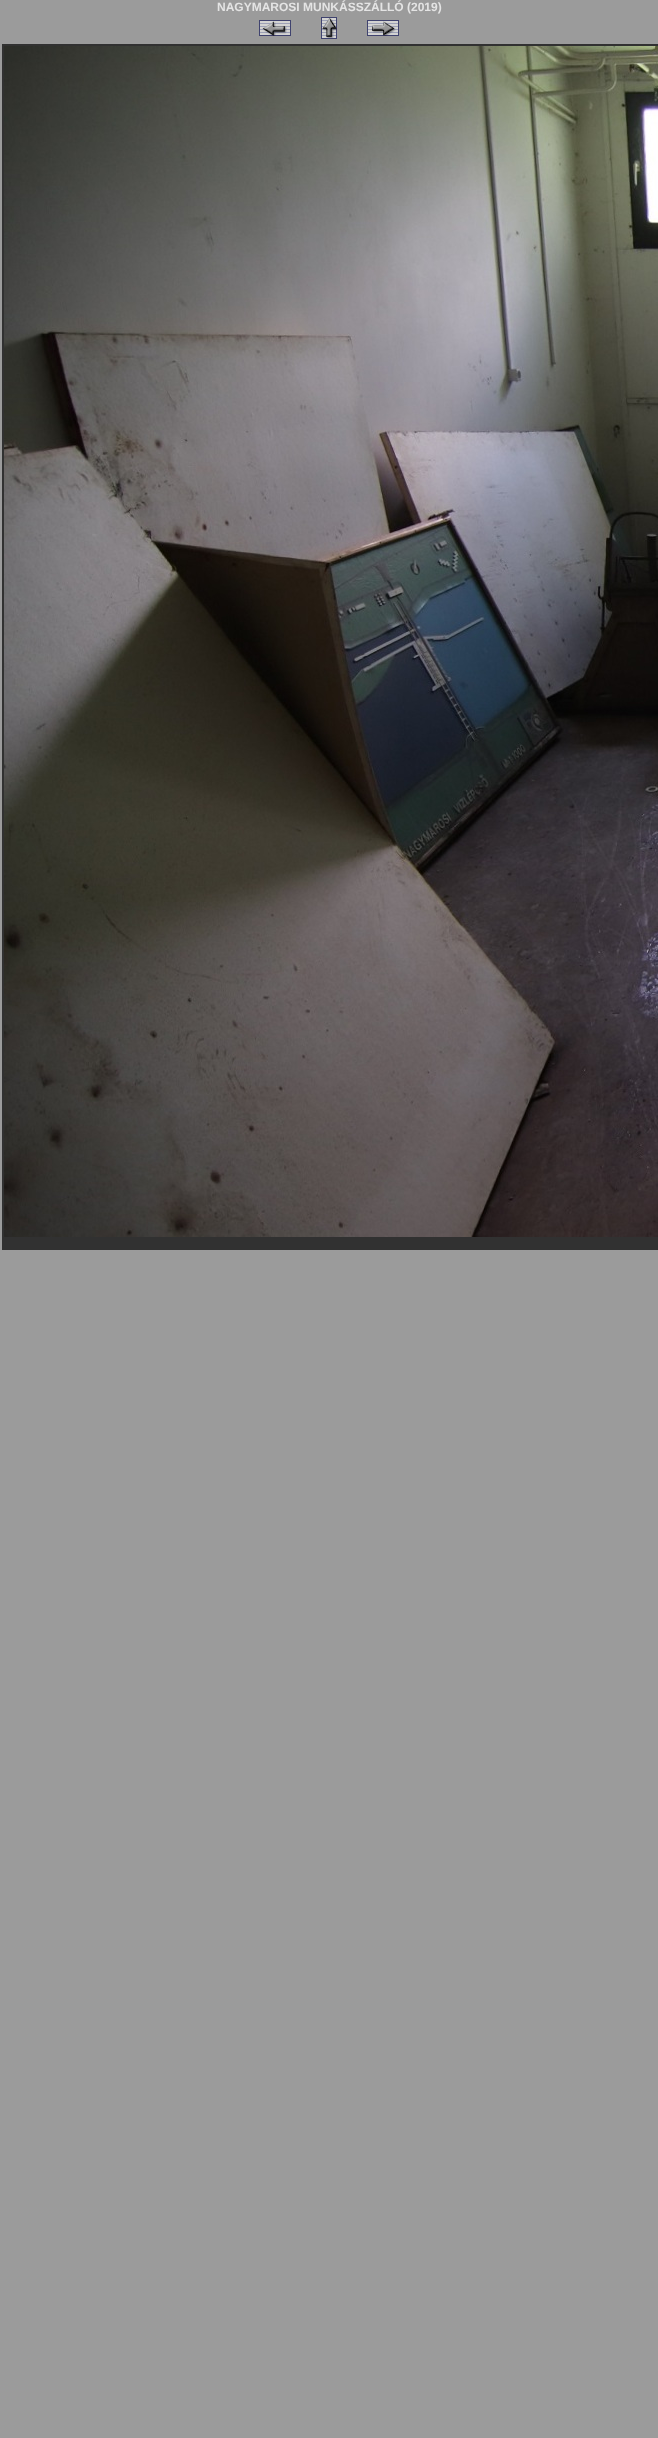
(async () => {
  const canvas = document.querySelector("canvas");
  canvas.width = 658;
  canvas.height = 2438;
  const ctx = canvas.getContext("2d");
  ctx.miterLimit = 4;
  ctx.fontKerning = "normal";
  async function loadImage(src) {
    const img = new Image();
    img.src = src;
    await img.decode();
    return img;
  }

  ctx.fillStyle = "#9b9b9b";
  ctx.fillRect(0, 0, 658, 2438);
  ctx.drawImage(await loadImage("img/1.png"), 259, 20, 32, 16);
  ctx.drawImage(await loadImage("img/2.png"), 321, 17, 16, 22);
  ctx.drawImage(await loadImage("img/3.png"), 367, 20, 32, 16);
  ctx.fillStyle = "#313131";
  ctx.fillRect(2, 44, 656, 1206);
  ctx.drawImage(await loadImage("img/4.png"), 4, 46, 654, 1191);
  ctx.font = "bold 12px Liberation Sans";
  ctx.fillStyle = "#e4e4e4";
  ctx.fillText("NAGYMAROSI MUNKÁSSZÁLLÓ (2019)", 217, 11);
})();
